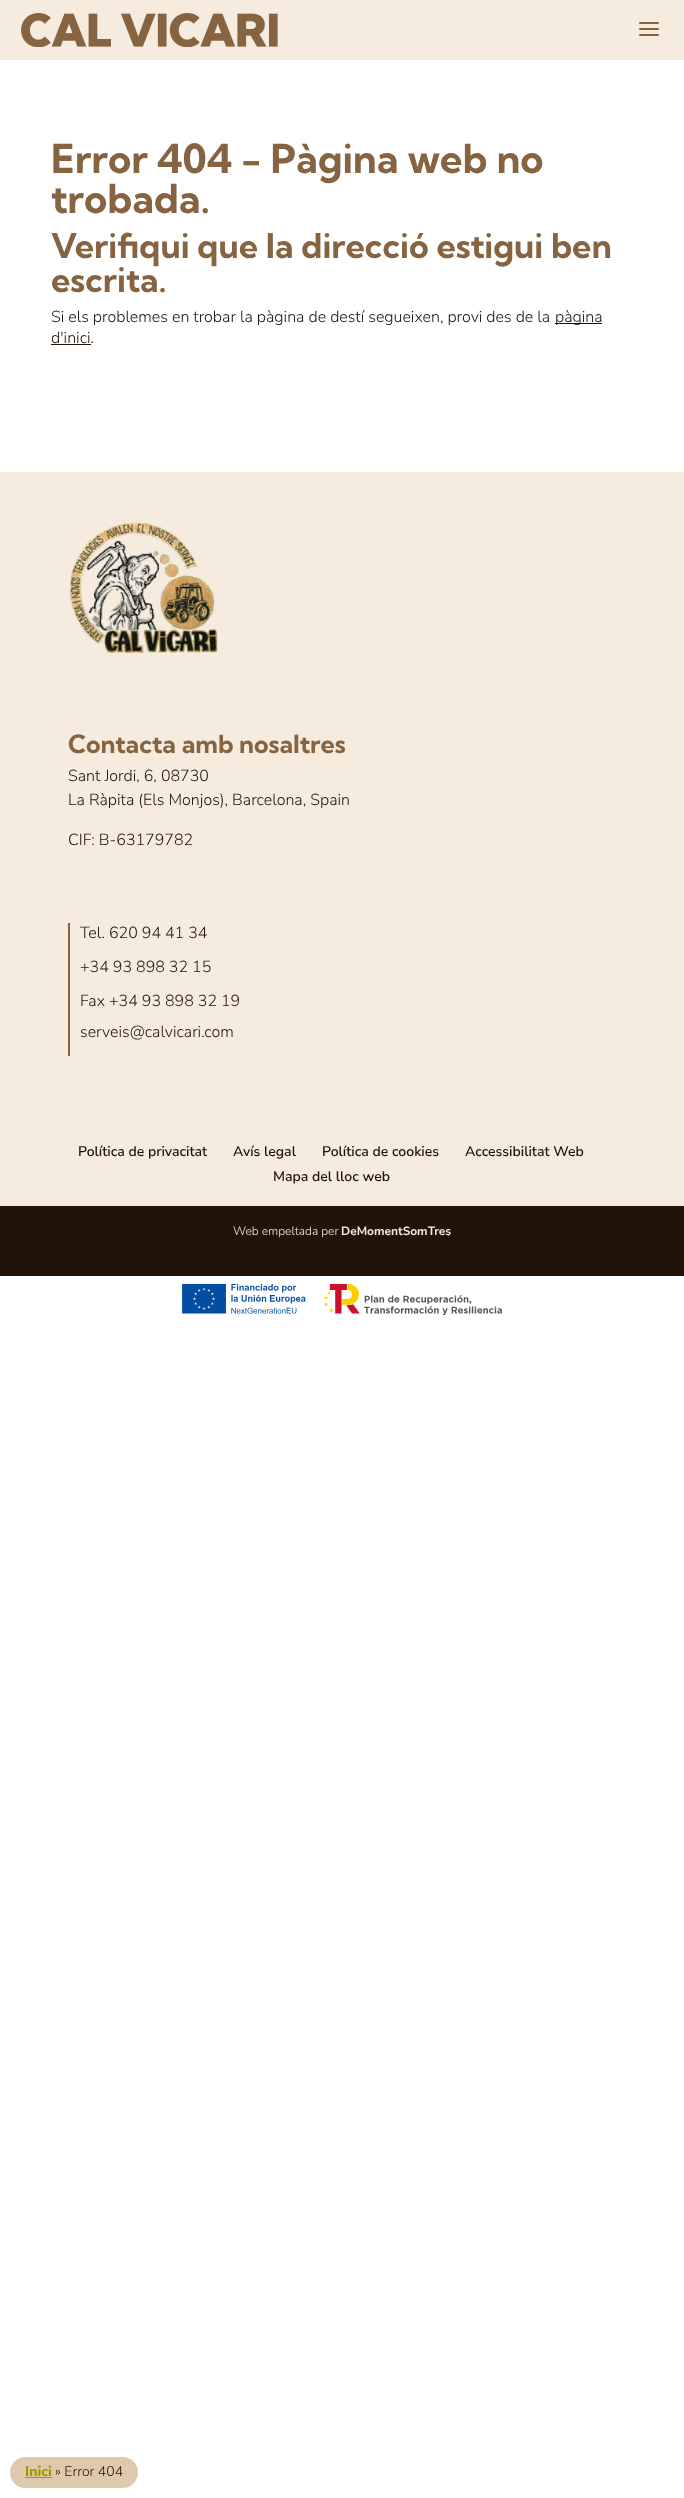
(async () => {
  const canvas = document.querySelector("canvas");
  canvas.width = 684;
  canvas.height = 2498;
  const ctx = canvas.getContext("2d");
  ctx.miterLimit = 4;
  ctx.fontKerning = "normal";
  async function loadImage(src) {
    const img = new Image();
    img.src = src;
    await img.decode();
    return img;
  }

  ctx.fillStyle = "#ffffff";
  ctx.fillRect(0, 0, 684, 2498);
  ctx.fillStyle = "#f5ecdf";
  ctx.fillRect(0, 0, 684, 60);
  ctx.drawImage(await loadImage("img/1.png"), 21, 13, 257, 34);
  ctx.fillStyle = "#866441";
  ctx.beginPath();
  ctx.roundRect(639, 28, 20, 2, 1);
  ctx.fill();
  ctx.beginPath();
  ctx.roundRect(639, 22, 20, 2, 1);
  ctx.fill();
  ctx.beginPath();
  ctx.roundRect(639, 34, 20, 2, 1);
  ctx.fill();
  for (const [x, y, w, h, color] of [
    [555, 323, 47, 1, "#211308"],
    [51, 344, 40, 1, "#211308"],
    [0, 472, 684, 734, "#f5ecdf"],
  ]) {
    ctx.fillStyle = color;
    ctx.fillRect(x, y, w, h);
  }
  ctx.drawImage(await loadImage("img/2.png"), 69, 522, 149, 131);
  ctx.fillStyle = "#866441";
  ctx.fillRect(68, 923, 2, 133);
  ctx.fillStyle = "#211308";
  ctx.fillRect(0, 1206, 684, 70);
  ctx.drawImage(await loadImage("img/3.png"), 182, 1284, 320, 31);
  ctx.fillStyle = "#ddc9ac";
  ctx.beginPath();
  ctx.roundRect(10, 2457, 128, 31, 15.5);
  ctx.fill();
  ctx.fillStyle = "#999b01";
  ctx.fillRect(25, 2477, 27, 1);
  ctx.font = "bold 40px Kumbh Sans";
  ctx.fillStyle = "#866441";
  ctx.fillText("Error 404 - Pàgina web no", 51, 173);
  ctx.fillText("trobada.", 51, 213);
  ctx.font = "bold 34px Kumbh Sans";
  ctx.fillText("Verifiqui que la direcció estigui ben", 51, 258);
  ctx.fillText("escrita.", 51, 292);
  ctx.font = "300 16px Nunito Sans";
  ctx.fillStyle = "#211308";
  for (const [text, x, y] of [
    ["Si els problemes en trobar la pàgina de destí segueixen, provi des de la", 51, 322],
    ["pàgina", 555, 322],
    ["d'inici.", 51, 343],
  ]) {
    ctx.fillText(text, x, y);
  }
  ctx.font = "bold 25px Kumbh Sans";
  ctx.fillStyle = "#866441";
  ctx.fillText("Contacta amb nosaltres", 68, 753);
  ctx.font = "300 16px Nunito Sans";
  ctx.fillStyle = "#211308";
  for (const [text, x, y] of [
    ["Sant Jordi, 6, 08730", 68, 781],
    ["La Ràpita (Els Monjos), Barcelona, Spain", 68, 805],
    ["CIF: B-63179782", 68, 845],
    ["Tel. 620 94 41 34", 80, 938],
    ["+34 93 898 32 15", 80, 972],
    ["Fax +34 93 898 32 19", 80, 1006],
    ["serveis@calvicari.com", 80, 1037],
  ]) {
    ctx.fillText(text, x, y);
  }
  ctx.font = "600 14px Nunito Sans";
  for (const [text, x, y] of [
    ["Política de privacitat", 78, 1156],
    ["Avís legal", 233, 1156],
    ["Política de cookies", 322, 1156],
    ["Accessibilitat Web", 465, 1156],
    ["Mapa del lloc web", 273, 1181],
  ]) {
    ctx.fillText(text, x, y);
  }
  ctx.font = "300 12px Nunito Sans";
  ctx.fillStyle = "#f5ecdf";
  ctx.fillText("Web empeltada per", 233, 1235);
  ctx.font = "bold 12px Nunito Sans";
  ctx.fillText("DeMomentSomTres", 341, 1235);
  ctx.font = "800 14px Nunito Sans";
  ctx.fillStyle = "#999b01";
  ctx.fillText("Inici", 25, 2476);
  ctx.font = "300 14px Nunito Sans";
  ctx.fillStyle = "#211308";
  ctx.fillText("» Error 404", 55, 2476);
})();
